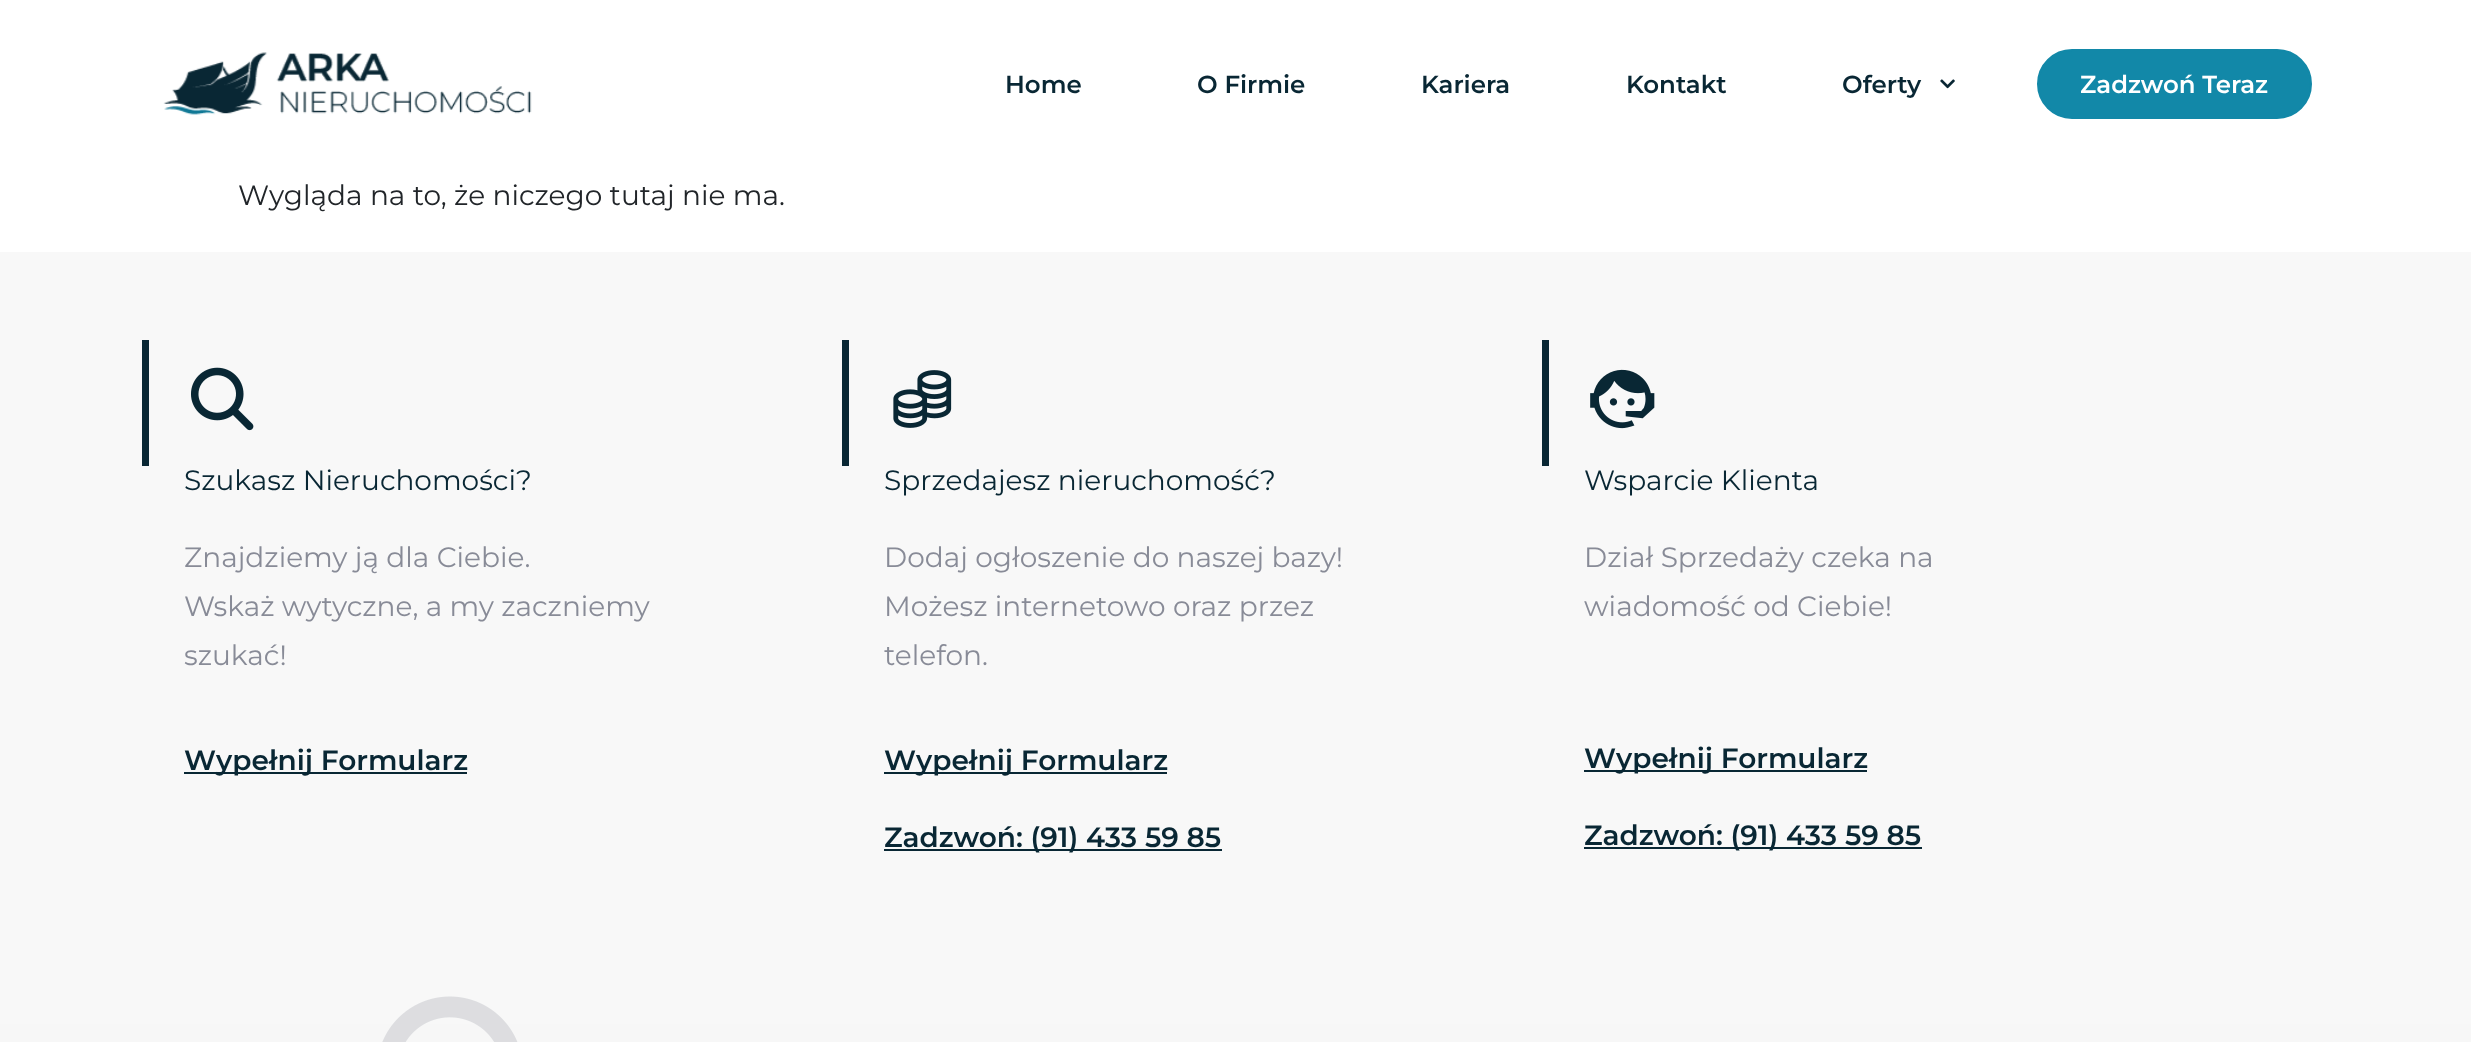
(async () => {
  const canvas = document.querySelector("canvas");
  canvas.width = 2471;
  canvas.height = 1042;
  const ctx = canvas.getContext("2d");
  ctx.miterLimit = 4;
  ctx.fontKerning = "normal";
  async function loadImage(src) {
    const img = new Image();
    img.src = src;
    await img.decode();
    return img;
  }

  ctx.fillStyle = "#ffffff";
  ctx.fillRect(0, 0, 2471, 1042);
  ctx.drawImage(await loadImage("img/1.png"), 163, 52, 369, 63);
  ctx.drawImage(await loadImage("img/2.png"), 1940, 79, 15, 10);
  ctx.fillStyle = "#1288a8";
  ctx.beginPath();
  ctx.roundRect(2038, 50, 273, 68, 34);
  ctx.fill();
  ctx.strokeStyle = "#1288a8";
  ctx.lineWidth = 2;
  ctx.stroke();
  ctx.fillStyle = "#f8f8f8";
  ctx.fillRect(0, 252, 2471, 772);
  ctx.fillStyle = "#092734";
  ctx.fillRect(142, 340, 7, 126);
  ctx.drawImage(await loadImage("img/3.png"), 191, 367, 63, 64);
  ctx.fillRect(184, 772, 283, 2);
  ctx.fillRect(842, 340, 7, 126);
  ctx.drawImage(await loadImage("img/4.png"), 893, 370, 59, 58);
  for (const [x, y, w, h, color] of [
    [884, 772, 283, 2, "#092734"],
    [884, 849, 338, 2, "#092734"],
    [1542, 340, 7, 126, "#092734"],
  ]) {
    ctx.fillStyle = color;
    ctx.fillRect(x, y, w, h);
  }
  ctx.drawImage(await loadImage("img/5.png"), 1590, 369, 65, 60);
  for (const [x, y, w, h, color] of [
    [1584, 770, 283, 2, "#092734"],
    [1584, 847, 338, 2, "#092734"],
    [0, 1024, 2471, 18, "#f7f7f7"],
  ]) {
    ctx.fillStyle = color;
    ctx.fillRect(x, y, w, h);
  }
  ctx.drawImage(await loadImage("img/6.png"), 382, 996, 136, 46);
  ctx.font = "600 24.5px Montserrat";
  ctx.fillStyle = "#092734";
  for (const [text, x, y] of [
    ["Home", 1005, 93],
    ["O Firmie", 1197, 93],
    ["Kariera", 1421, 93],
    ["Kontakt", 1626, 93],
    ["Oferty", 1842, 93],
  ]) {
    ctx.fillText(text, x, y);
  }
  ctx.fillStyle = "#ffffff";
  ctx.fillText("Zadzwoń Teraz", 2080, 93);
  ctx.font = "28px Montserrat";
  ctx.fillStyle = "#212529";
  ctx.fillText("Wygląda na to, że niczego tutaj nie ma.", 238, 205);
  ctx.fillStyle = "#092734";
  ctx.fillText("Szukasz Nieruchomości?", 184, 490);
  ctx.fillStyle = "#888b97";
  for (const [text, x, y] of [
    ["Znajdziemy ją dla Ciebie.", 184, 567],
    ["Wskaż wytyczne, a my zaczniemy", 184, 616],
    ["szukać!", 184, 665],
  ]) {
    ctx.fillText(text, x, y);
  }
  ctx.font = "600 28px Montserrat";
  ctx.fillStyle = "#092734";
  ctx.fillText("Wypełnij Formularz", 184, 770);
  ctx.font = "28px Montserrat";
  ctx.fillText("Sprzedajesz nieruchomość?", 884, 490);
  ctx.fillStyle = "#888b97";
  for (const [text, x, y] of [
    ["Dodaj ogłoszenie do naszej bazy!", 884, 567],
    ["Możesz internetowo oraz przez", 884, 616],
    ["telefon.", 884, 665],
  ]) {
    ctx.fillText(text, x, y);
  }
  ctx.font = "600 28px Montserrat";
  ctx.fillStyle = "#092734";
  ctx.fillText("Wypełnij Formularz", 884, 770);
  ctx.fillText("Zadzwoń: (91) 433 59 85", 884, 847);
  ctx.font = "28px Montserrat";
  ctx.fillText("Wsparcie Klienta", 1584, 490);
  ctx.fillStyle = "#888b97";
  ctx.fillText("Dział Sprzedaży czeka na", 1584, 567);
  ctx.fillText("wiadomość od Ciebie!", 1584, 616);
  ctx.font = "600 28px Montserrat";
  ctx.fillStyle = "#092734";
  ctx.fillText("Wypełnij Formularz", 1584, 768);
  ctx.fillText("Zadzwoń: (91) 433 59 85", 1584, 845);
})();
